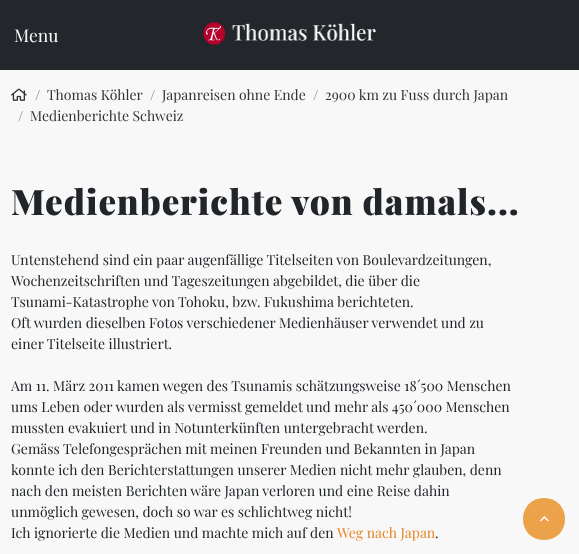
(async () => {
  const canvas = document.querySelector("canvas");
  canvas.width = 579;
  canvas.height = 554;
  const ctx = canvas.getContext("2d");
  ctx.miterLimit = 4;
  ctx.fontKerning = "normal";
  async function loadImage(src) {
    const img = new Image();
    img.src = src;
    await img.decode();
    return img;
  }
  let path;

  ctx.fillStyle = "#f8f8f8";
  ctx.fillRect(0, 0, 579, 554);
  ctx.fillStyle = "#23262a";
  ctx.fillRect(0, 0, 579, 70);
  ctx.drawImage(await loadImage("img/1.png"), 203, 22, 173, 23);
  ctx.drawImage(await loadImage("img/2.png"), 11, 88, 16, 13);
  ctx.fillStyle = "#eca14b";
  path = new Path2D("M544 498C572 498 572 540 544 540C516 540 516 498 544 498Z");
  ctx.fill(path);
  ctx.drawImage(await loadImage("img/3.png"), 540, 516, 9, 6);
  ctx.font = "17.5px Playfair Display";
  ctx.fillStyle = "#f9fafa";
  ctx.fillText("Menu", 14, 42);
  ctx.font = "14px Playfair Display";
  ctx.fillStyle = "#575a5d";
  ctx.fillText("/", 35, 100);
  ctx.fillStyle = "#333333";
  ctx.fillText("Thomas Köhler", 47, 100);
  ctx.fillStyle = "#575a5d";
  ctx.fillText("/", 150, 100);
  ctx.fillStyle = "#333333";
  ctx.fillText("Japanreisen ohne Ende", 162, 100);
  ctx.fillStyle = "#575a5d";
  ctx.fillText("/", 313, 100);
  ctx.fillStyle = "#333333";
  ctx.fillText("2900 km zu Fuss durch Japan", 325, 100);
  ctx.fillStyle = "#575a5d";
  ctx.fillText("/", 18, 121);
  ctx.fillStyle = "#333333";
  ctx.fillText("Medienberichte Schweiz", 30, 121);
  ctx.letterSpacing = "1px";
  ctx.font = "900 35px Playfair Display";
  ctx.fillStyle = "#212529";
  ctx.fillText("Medienberichte von damals...", 11, 215);
  ctx.letterSpacing = "0px";
  ctx.font = "14px Playfair Display";
  for (const [text, x, y] of [
    ["Untenstehend sind ein paar augenfällige Titelseiten von Boulevardzeitungen,", 11, 265],
    ["Wochenzeitschriften und Tageszeitungen abgebildet, die über die", 11, 286],
    ["Tsunami-Katastrophe von Tohoku, bzw. Fukushima berichteten.", 11, 307],
    ["Oft wurden dieselben Fotos verschiedener Medienhäuser verwendet und zu", 11, 328],
    ["einer Titelseite illustriert.", 11, 349],
    ["Am 11. März 2011 kamen wegen des Tsunamis schätzungsweise 18´500 Menschen", 11, 391],
    ["ums Leben oder wurden als vermisst gemeldet und mehr als 450´000 Menschen", 11, 412],
    ["mussten evakuiert und in Notunterkünften untergebracht werden.", 11, 433],
    ["Gemäss Telefongesprächen mit meinen Freunden und Bekannten in Japan", 11, 454],
    ["konnte ich den Berichterstattungen unserer Medien nicht mehr glauben, denn", 11, 475],
    ["nach den meisten Berichten wäre Japan verloren und eine Reise dahin", 11, 496],
    ["unmöglich gewesen, doch so war es schlichtweg nicht!", 11, 517],
    ["Ich ignorierte die Medien und machte mich auf den", 11, 538],
  ]) {
    ctx.fillText(text, x, y);
  }
  ctx.fillStyle = "#e78727";
  ctx.fillText("Weg nach Japan", 337, 538);
  ctx.fillStyle = "#212529";
  ctx.fillText(".", 435, 538);
})();
